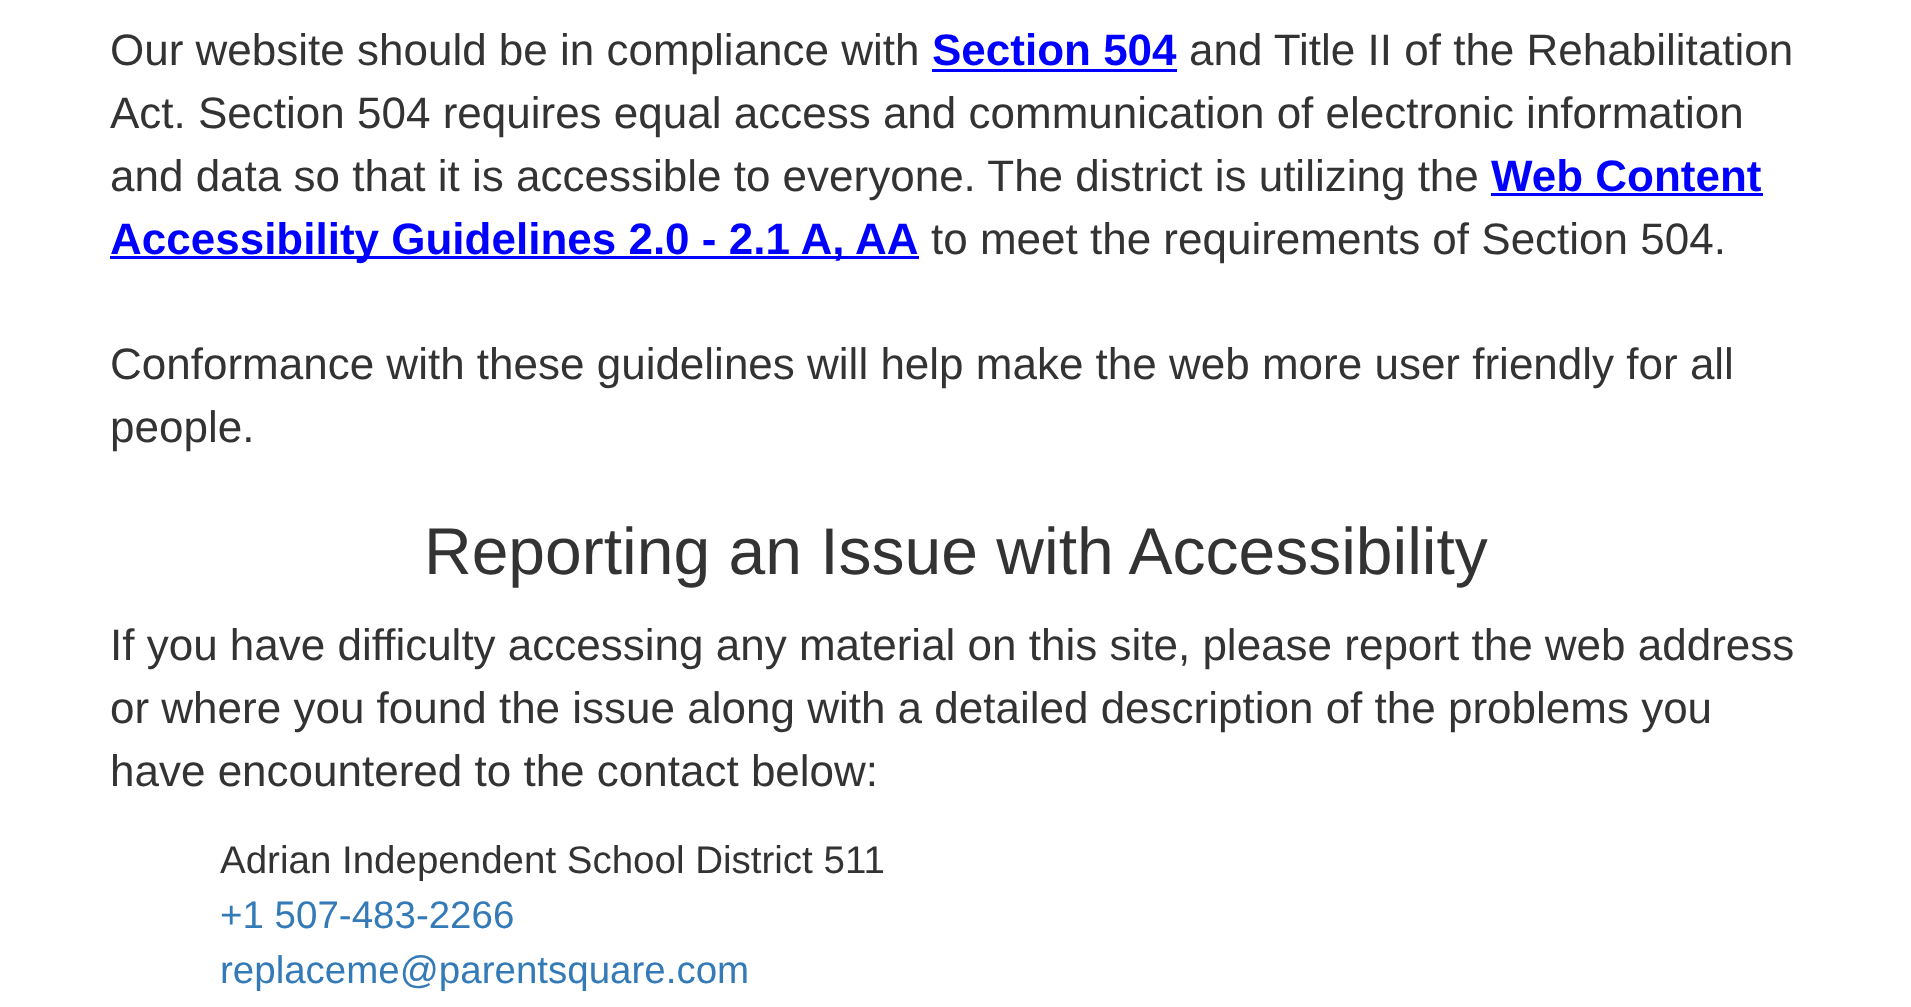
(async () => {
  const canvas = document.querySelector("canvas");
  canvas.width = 1911;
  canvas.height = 1007;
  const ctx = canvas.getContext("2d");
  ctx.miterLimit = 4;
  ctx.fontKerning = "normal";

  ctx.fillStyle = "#ffffff";
  ctx.fillRect(0, 0, 1911, 1007);
  for (const [x, y, w, h, color] of [
    [932, 69, 245, 3, "#0000ff"],
    [1491, 193, 272, 3, "#0000ff"],
    [110, 256, 809, 3, "#0000ff"],
  ]) {
    ctx.fillStyle = color;
    ctx.fillRect(x, y, w, h);
  }
  ctx.font = "44px Liberation Sans";
  ctx.fillStyle = "#333333";
  ctx.fillText("Our website should be in compliance with", 110, 65);
  ctx.font = "bold 44px Liberation Sans";
  ctx.fillStyle = "#0000ff";
  ctx.fillText("Section 504", 932, 65);
  ctx.font = "44px Liberation Sans";
  ctx.fillStyle = "#333333";
  for (const [text, x, y] of [
    ["and Title II of the Rehabilitation", 1189, 65],
    ["Act. Section 504 requires equal access and communication of electronic information", 110, 128],
    ["and data so that it is accessible to everyone. The district is utilizing the", 110, 191],
  ]) {
    ctx.fillText(text, x, y);
  }
  ctx.font = "bold 44px Liberation Sans";
  ctx.fillStyle = "#0000ff";
  ctx.fillText("Web Content", 1491, 191);
  ctx.fillText("Accessibility Guidelines 2.0 - 2.1 A, AA", 110, 254);
  ctx.font = "44px Liberation Sans";
  ctx.fillStyle = "#333333";
  for (const [text, x, y] of [
    ["to meet the requirements of Section 504.", 931, 254],
    ["Conformance with these guidelines will help make the web more user friendly for all", 110, 379],
    ["people.", 110, 442],
  ]) {
    ctx.fillText(text, x, y);
  }
  ctx.font = "66px Liberation Sans";
  ctx.fillText("Reporting an Issue with Accessibility", 424, 574);
  ctx.font = "44px Liberation Sans";
  for (const [text, x, y] of [
    ["If you have difficulty accessing any material on this site, please report the web address", 110, 660],
    ["or where you found the issue along with a detailed description of the problems you", 110, 723],
    ["have encountered to the contact below:", 110, 786],
  ]) {
    ctx.fillText(text, x, y);
  }
  ctx.font = "38.5px Liberation Sans";
  ctx.fillText("Adrian Independent School District 511", 220, 873);
  ctx.fillStyle = "#337ab7";
  ctx.fillText("+1 507-483-2266", 220, 928);
  ctx.fillText("replaceme@parentsquare.com", 220, 983);
})();
